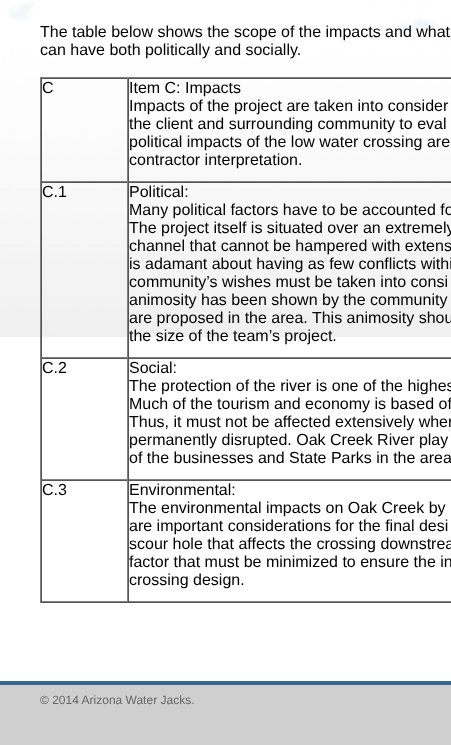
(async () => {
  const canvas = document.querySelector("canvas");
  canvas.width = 451;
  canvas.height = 745;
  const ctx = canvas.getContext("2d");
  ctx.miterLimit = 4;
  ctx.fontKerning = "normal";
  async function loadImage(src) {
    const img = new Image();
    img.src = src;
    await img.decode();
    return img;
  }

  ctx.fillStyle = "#cfcfcf";
  ctx.fillRect(0, 0, 451, 745);
  ctx.fillStyle = "#ffffff";
  ctx.fillRect(0, 0, 451, 681);
  ctx.drawImage(await loadImage("img/1.png"), 0, 1, 451, 336);
  for (const [x, y, w, h, color] of [
    [40, 77, 411, 1, "#808080"],
    [40, 602, 411, 1, "#555555"],
    [40, 77, 1, 526, "#808080"],
    [41, 78, 410, 1, "#555555"],
    [127, 78, 1, 104, "#808080"],
    [41, 181, 410, 1, "#808080"],
    [41, 78, 1, 104, "#555555"],
    [128, 78, 1, 104, "#555555"],
    [41, 182, 410, 1, "#555555"],
    [127, 182, 1, 176, "#808080"],
    [41, 357, 410, 1, "#808080"],
    [41, 182, 1, 176, "#555555"],
    [128, 182, 1, 176, "#555555"],
    [41, 358, 410, 1, "#555555"],
    [127, 358, 1, 122, "#808080"],
    [41, 479, 410, 1, "#808080"],
    [41, 358, 1, 122, "#555555"],
    [128, 358, 1, 122, "#555555"],
    [41, 480, 410, 1, "#555555"],
    [127, 480, 1, 122, "#808080"],
    [41, 601, 410, 1, "#808080"],
    [41, 480, 1, 122, "#555555"],
    [128, 480, 1, 122, "#555555"],
    [0, 681, 451, 4, "#376692"],
  ]) {
    ctx.fillStyle = color;
    ctx.fillRect(x, y, w, h);
  }
  ctx.font = "16px Liberation Sans";
  ctx.fillStyle = "#000000";
  for (const [text, x, y] of [
    ["The table below shows the scope of the impacts and what", 40, 37],
    ["can have both politically and socially.", 40, 55],
    ["C", 42, 93],
    ["Item C: Impacts", 129, 93],
    ["Impacts of the project are taken into consider", 129, 111],
    ["the client and surrounding community to eval", 129, 129],
    ["political impacts of the low water crossing are", 129, 147],
    ["contractor interpretation.", 129, 165],
    ["C.1", 42, 197],
    ["Political:", 129, 197],
    ["Many political factors have to be accounted fo", 129, 215],
    ["The project itself is situated over an extremely", 129, 233],
    ["channel that cannot be hampered with extens", 129, 251],
    ["is adamant about having as few conflicts withi", 129, 269],
    ["community’s wishes must be taken into consi", 129, 287],
    ["animosity has been shown by the community", 129, 305],
    ["are proposed in the area. This animosity shou", 129, 323],
    ["the size of the team’s project.", 129, 341],
    ["C.2", 42, 373],
    ["Social:", 129, 373],
    ["The protection of the river is one of the highes", 129, 391],
    ["Much of the tourism and economy is based of", 129, 409],
    ["Thus, it must not be affected extensively wher", 129, 427],
    ["permanently disrupted. Oak Creek River play", 129, 445],
    ["of the businesses and State Parks in the area", 129, 463],
    ["C.3", 42, 495],
    ["Environmental:", 129, 495],
    ["The environmental impacts on Oak Creek by", 129, 513],
    ["are important considerations for the final desi", 129, 531],
    ["scour hole that affects the crossing downstrea", 129, 549],
    ["factor that must be minimized to ensure the in", 129, 567],
    ["crossing design.", 129, 585],
  ]) {
    ctx.fillText(text, x, y);
  }
  ctx.font = "12px Liberation Sans";
  ctx.fillStyle = "#666666";
  ctx.fillText("© 2014 Arizona Water Jacks.", 40, 704);
})();
